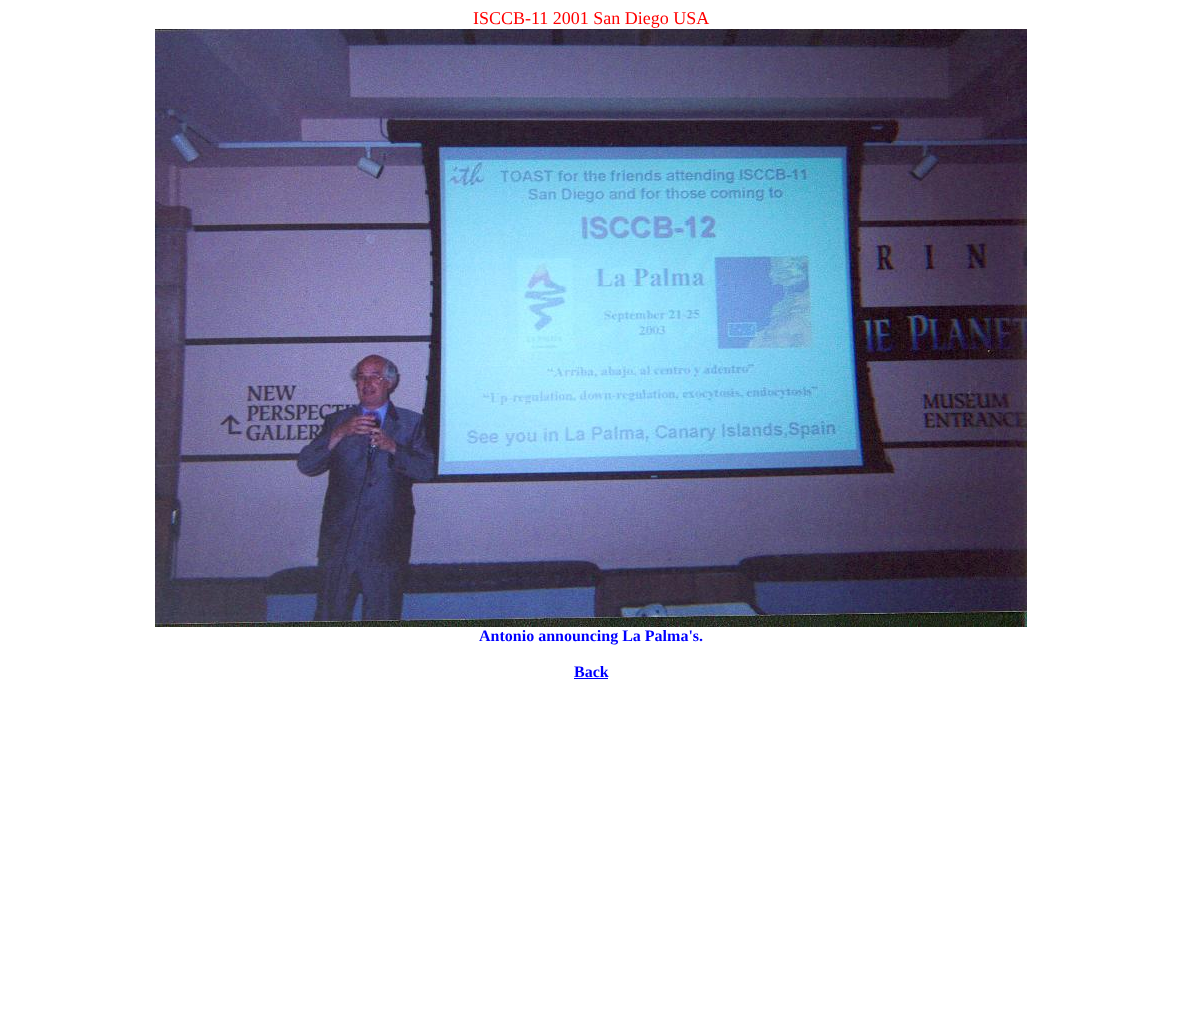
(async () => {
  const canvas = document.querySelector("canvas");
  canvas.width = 1182;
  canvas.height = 1027;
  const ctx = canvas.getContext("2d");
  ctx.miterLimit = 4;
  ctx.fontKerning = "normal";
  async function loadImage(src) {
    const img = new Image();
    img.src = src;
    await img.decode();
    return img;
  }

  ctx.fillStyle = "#ffffff";
  ctx.fillRect(0, 0, 1182, 1027);
  ctx.drawImage(await loadImage("img/1.png"), 155, 29, 872, 598);
  ctx.fillStyle = "#0000ff";
  ctx.fillRect(574, 678, 34, 1);
  ctx.font = "18px Liberation Serif";
  ctx.fillStyle = "#ff0000";
  ctx.fillText("ISCCB-11 2001 San Diego USA", 473, 24);
  ctx.font = "bold 16px Liberation Serif";
  ctx.fillStyle = "#0000ff";
  ctx.fillText("Antonio announcing La Palma's.", 479, 641);
  ctx.fillText("Back", 574, 677);
})();
